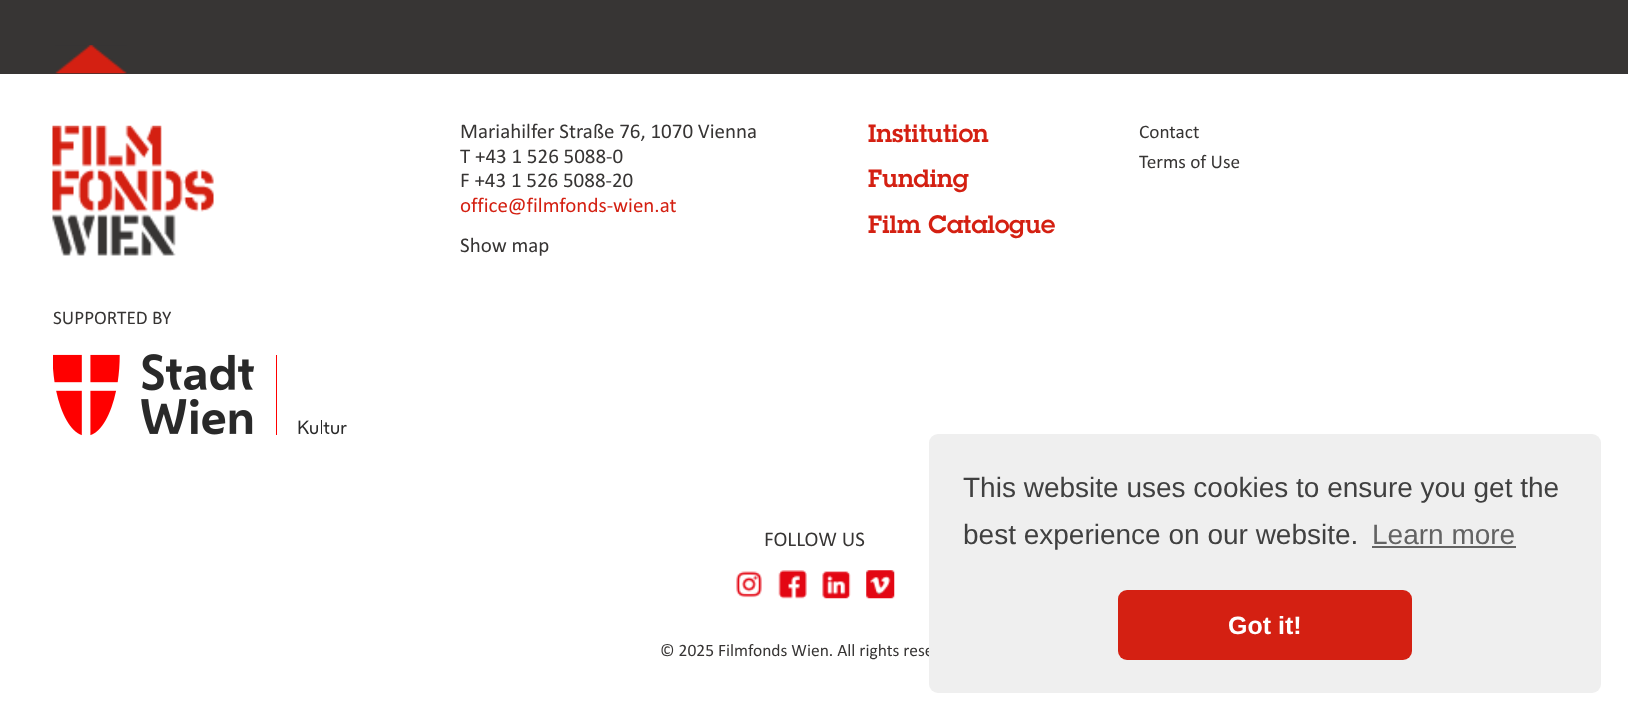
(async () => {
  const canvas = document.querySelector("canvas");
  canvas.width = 1628;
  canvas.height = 721;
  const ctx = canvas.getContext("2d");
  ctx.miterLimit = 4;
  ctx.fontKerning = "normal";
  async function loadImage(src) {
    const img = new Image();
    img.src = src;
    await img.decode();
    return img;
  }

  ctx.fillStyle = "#373534";
  ctx.fillRect(0, 0, 1628, 721);
  ctx.fillStyle = "#ffffff";
  ctx.fillRect(0, 74, 1628, 647);
  ctx.drawImage(await loadImage("img/1.png"), 55, 45, 72, 29);
  ctx.drawImage(await loadImage("img/2.png"), 52, 125, 162, 131);
  ctx.drawImage(await loadImage("img/3.png"), 53, 354, 294, 82);
  ctx.drawImage(await loadImage("img/4.png"), 736, 571, 26, 27);
  ctx.drawImage(await loadImage("img/5.png"), 778, 570, 29, 29);
  ctx.drawImage(await loadImage("img/6.png"), 822, 571, 29, 28);
  ctx.drawImage(await loadImage("img/7.png"), 866, 570, 29, 29);
  ctx.font = "21px Calibri";
  ctx.fillStyle = "#373534";
  for (const [text, x, y] of [
    ["Mariahilfer Straße 76, 1070 Vienna", 460, 138],
    ["T +43 1 526 5088-0", 460, 163],
    ["F +43 1 526 5088-20", 460, 187],
  ]) {
    ctx.fillText(text, x, y);
  }
  ctx.fillStyle = "#d42012";
  ctx.fillText("office@filmfonds-wien.at", 460, 212);
  ctx.fillStyle = "#373534";
  ctx.fillText("Show map", 460, 252);
  ctx.font = "24.5px 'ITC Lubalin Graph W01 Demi'";
  ctx.fillStyle = "#d42012";
  for (const [text, x, y] of [
    ["Institution", 868, 142],
    ["Funding", 868, 187],
    ["Film Catalogue", 868, 233],
  ]) {
    ctx.fillText(text, x, y);
  }
  ctx.font = "19.25px Calibri";
  ctx.fillStyle = "#373534";
  for (const [text, x, y] of [
    ["Contact", 1139, 138],
    ["Terms of Use", 1139, 168],
    ["SUPPORTED BY", 53, 324],
  ]) {
    ctx.fillText(text, x, y);
  }
  ctx.font = "21px Calibri";
  ctx.fillText("FOLLOW US", 764, 546);
  ctx.font = "17.5px Calibri";
  ctx.fillText("© 2025 Filmfonds Wien. All rights rese", 660, 656);
  ctx.fillStyle = "#efefef";
  ctx.beginPath();
  ctx.roundRect(929, 434, 672, 259, 9);
  ctx.fill();
  ctx.font = "28px Liberation Sans";
  ctx.fillStyle = "#404040";
  ctx.fillText("This website uses cookies to ensure you get the", 963, 497);
  ctx.fillText("best experience on our website.", 963, 544);
  ctx.fillStyle = "#636363";
  ctx.fillText("Learn more", 1372, 544);
  ctx.fillRect(1372, 546, 144, 2);
  ctx.fillStyle = "#d42012";
  ctx.beginPath();
  ctx.roundRect(1118, 590, 294, 70, 9);
  ctx.fill();
  ctx.font = "bold 25px Liberation Sans";
  ctx.fillStyle = "#ffffff";
  ctx.fillText("Got it!", 1228, 634);
})();
